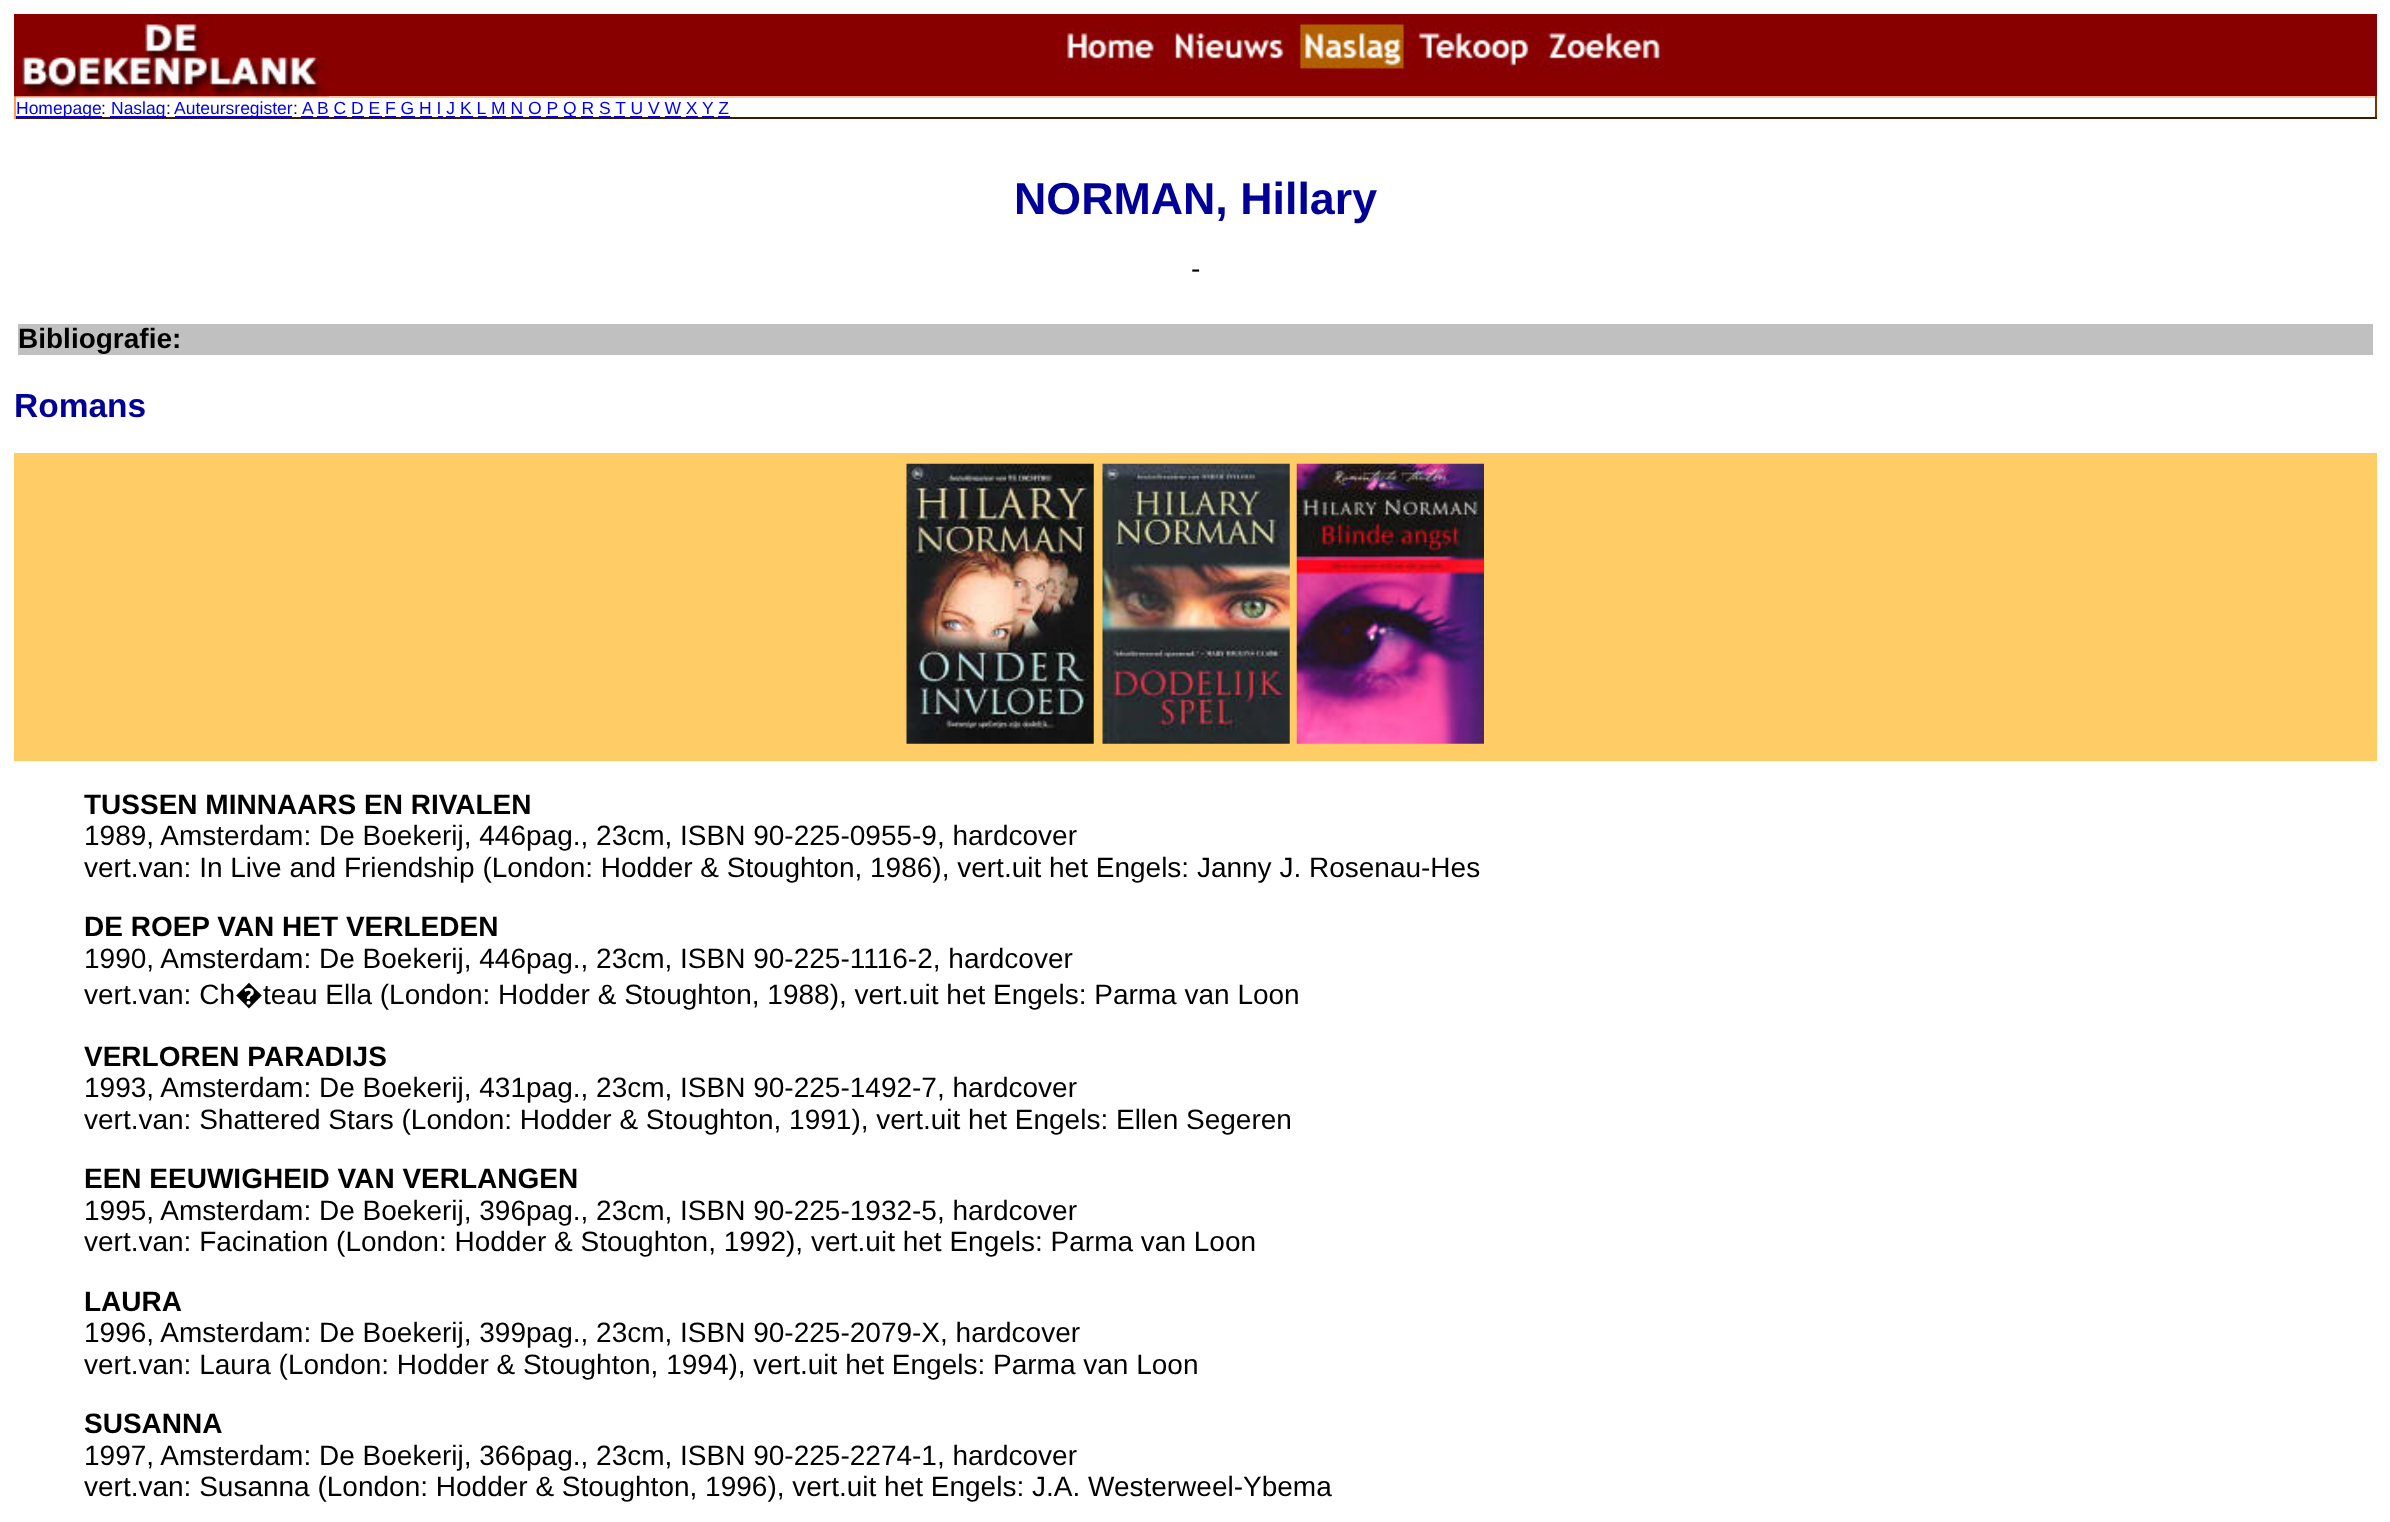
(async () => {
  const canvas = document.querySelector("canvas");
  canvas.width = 2390;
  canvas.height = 1522;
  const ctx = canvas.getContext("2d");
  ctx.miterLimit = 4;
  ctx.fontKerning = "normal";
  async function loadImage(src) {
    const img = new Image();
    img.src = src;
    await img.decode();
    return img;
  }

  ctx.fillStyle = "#ffffff";
  ctx.fillRect(0, 0, 2390, 1522);
  for (const [x, y, w, h, color] of [
    [329, 14, 2048, 82, "#880000"],
    [14, 96, 2363, 2, "#ffc8a4"],
    [2375, 96, 2, 23, "#7d3302"],
    [14, 117, 2363, 2, "#3f1a01"],
    [14, 96, 2, 23, "#ff9a57"],
  ]) {
    ctx.fillStyle = color;
    ctx.fillRect(x, y, w, h);
  }
  ctx.drawImage(await loadImage("img/1.png"), 14, 14, 315, 83);
  ctx.drawImage(await loadImage("img/2.png"), 1062, 14, 603, 57);
  for (const [x, y, w, h, color] of [
    [16, 116, 86, 2, "#0000ee"],
    [110, 116, 56, 2, "#0000ee"],
    [175, 116, 117, 2, "#0000ee"],
    [301, 116, 12, 2, "#0000ee"],
    [317, 116, 12, 2, "#0000ee"],
    [334, 116, 13, 2, "#0000ee"],
    [352, 116, 12, 2, "#0000ee"],
    [369, 116, 13, 2, "#0000ee"],
    [385, 116, 11, 2, "#0000ee"],
    [401, 116, 14, 2, "#0000ee"],
    [420, 116, 12, 2, "#0000ee"],
    [438, 116, 5, 2, "#0000ee"],
    [446, 116, 9, 2, "#0000ee"],
    [460, 116, 13, 2, "#0000ee"],
    [478, 116, 9, 2, "#0000ee"],
    [492, 116, 14, 2, "#0000ee"],
    [511, 116, 12, 2, "#0000ee"],
    [529, 116, 12, 2, "#0000ee"],
    [546, 116, 12, 2, "#0000ee"],
    [564, 116, 12, 2, "#0000ee"],
    [581, 116, 12, 2, "#0000ee"],
    [599, 116, 12, 2, "#0000ee"],
    [614, 116, 11, 2, "#0000ee"],
    [630, 116, 12, 2, "#0000ee"],
    [648, 116, 12, 2, "#0000ee"],
    [665, 116, 16, 2, "#0000ee"],
    [686, 116, 12, 2, "#0000ee"],
    [702, 116, 12, 2, "#0000ee"],
    [718, 116, 12, 2, "#0000ee"],
    [18, 324, 2355, 31, "#c0c0c0"],
    [14, 453, 2363, 308, "#ffcc66"],
  ]) {
    ctx.fillStyle = color;
    ctx.fillRect(x, y, w, h);
  }
  ctx.drawImage(await loadImage("img/3.png"), 906, 463, 188, 281);
  ctx.drawImage(await loadImage("img/4.png"), 1102, 463, 188, 281);
  ctx.drawImage(await loadImage("img/5.png"), 1296, 463, 188, 281);
  ctx.font = "17.5px Liberation Sans";
  ctx.fillStyle = "#0000ee";
  ctx.fillText("Homepage", 16, 114);
  ctx.fillStyle = "#000000";
  ctx.fillText(":", 101, 114);
  ctx.fillStyle = "#0000ee";
  ctx.fillText("Naslag", 111, 114);
  ctx.fillStyle = "#000000";
  ctx.fillText(":", 166, 114);
  ctx.fillStyle = "#0000ee";
  ctx.fillText("Auteursregister", 174, 114);
  ctx.fillStyle = "#000000";
  ctx.fillText(":", 293, 114);
  ctx.fillStyle = "#0000ee";
  for (const [text, x, y] of [
    ["A", 302, 114],
    ["B C D E F G H I J K L", 317, 114],
    ["M N O P", 491, 114],
    ["Q R S T U V W X Y Z", 563, 114],
  ]) {
    ctx.fillText(text, x, y);
  }
  ctx.font = "bold 44.75px Liberation Sans";
  ctx.fillStyle = "#000099";
  ctx.fillText("NORMAN, Hillary", 1014, 214);
  ctx.font = "28px Liberation Sans";
  ctx.fillStyle = "#000000";
  ctx.fillText("-", 1191, 278);
  ctx.font = "bold 28px Liberation Sans";
  ctx.fillText("Bibliografie:", 18, 348);
  ctx.font = "bold 33.5px Liberation Sans";
  ctx.fillStyle = "#000099";
  ctx.fillText("Romans", 14, 417);
  ctx.font = "bold 28px Liberation Sans";
  ctx.fillStyle = "#000000";
  ctx.fillText("TUSSEN MINNAARS EN RIVALEN", 84, 814);
  ctx.font = "28px Liberation Sans";
  ctx.fillText("1989, Amsterdam: De Boekerij, 446pag., 23cm, ISBN 90-225-0955-9, hardcover", 84, 845);
  ctx.fillText("vert.van: In Live and Friendship (London: Hodder & Stoughton, 1986), vert.uit het Engels: Janny J. Rosenau-Hes", 84, 877);
  ctx.font = "bold 28px Liberation Sans";
  ctx.fillText("DE ROEP VAN HET VERLEDEN", 84, 936);
  ctx.font = "28px Liberation Sans";
  ctx.fillText("1990, Amsterdam: De Boekerij, 446pag., 23cm, ISBN 90-225-1116-2, hardcover", 84, 968);
  ctx.fillText("vert.van: Ch", 84, 1004);
  ctx.font = "28px Noto Sans";
  ctx.fillText("�", 235, 1004);
  ctx.font = "28px Liberation Sans";
  ctx.fillText("teau Ella (London: Hodder & Stoughton, 1988), vert.uit het Engels: Parma van Loon", 263, 1004);
  ctx.font = "bold 28px Liberation Sans";
  ctx.fillText("VERLOREN PARADIJS", 84, 1066);
  ctx.font = "28px Liberation Sans";
  ctx.fillText("1993, Amsterdam: De Boekerij, 431pag., 23cm, ISBN 90-225-1492-7, hardcover", 84, 1097);
  ctx.fillText("vert.van: Shattered Stars (London: Hodder & Stoughton, 1991), vert.uit het Engels: Ellen Segeren", 84, 1129);
  ctx.font = "bold 28px Liberation Sans";
  ctx.fillText("EEN EEUWIGHEID VAN VERLANGEN", 84, 1188);
  ctx.font = "28px Liberation Sans";
  ctx.fillText("1995, Amsterdam: De Boekerij, 396pag., 23cm, ISBN 90-225-1932-5, hardcover", 84, 1220);
  ctx.fillText("vert.van: Facination (London: Hodder & Stoughton, 1992), vert.uit het Engels: Parma van Loon", 84, 1251);
  ctx.font = "bold 28px Liberation Sans";
  ctx.fillText("LAURA", 84, 1311);
  ctx.font = "28px Liberation Sans";
  ctx.fillText("1996, Amsterdam: De Boekerij, 399pag., 23cm, ISBN 90-225-2079-X, hardcover", 84, 1342);
  ctx.fillText("vert.van: Laura (London: Hodder & Stoughton, 1994), vert.uit het Engels: Parma van Loon", 84, 1374);
  ctx.font = "bold 28px Liberation Sans";
  ctx.fillText("SUSANNA", 84, 1433);
  ctx.font = "28px Liberation Sans";
  ctx.fillText("1997, Amsterdam: De Boekerij, 366pag., 23cm, ISBN 90-225-2274-1, hardcover", 84, 1465);
  ctx.fillText("vert.van: Susanna (London: Hodder & Stoughton, 1996), vert.uit het Engels: J.A. Westerweel-Ybema", 84, 1496);
})();
